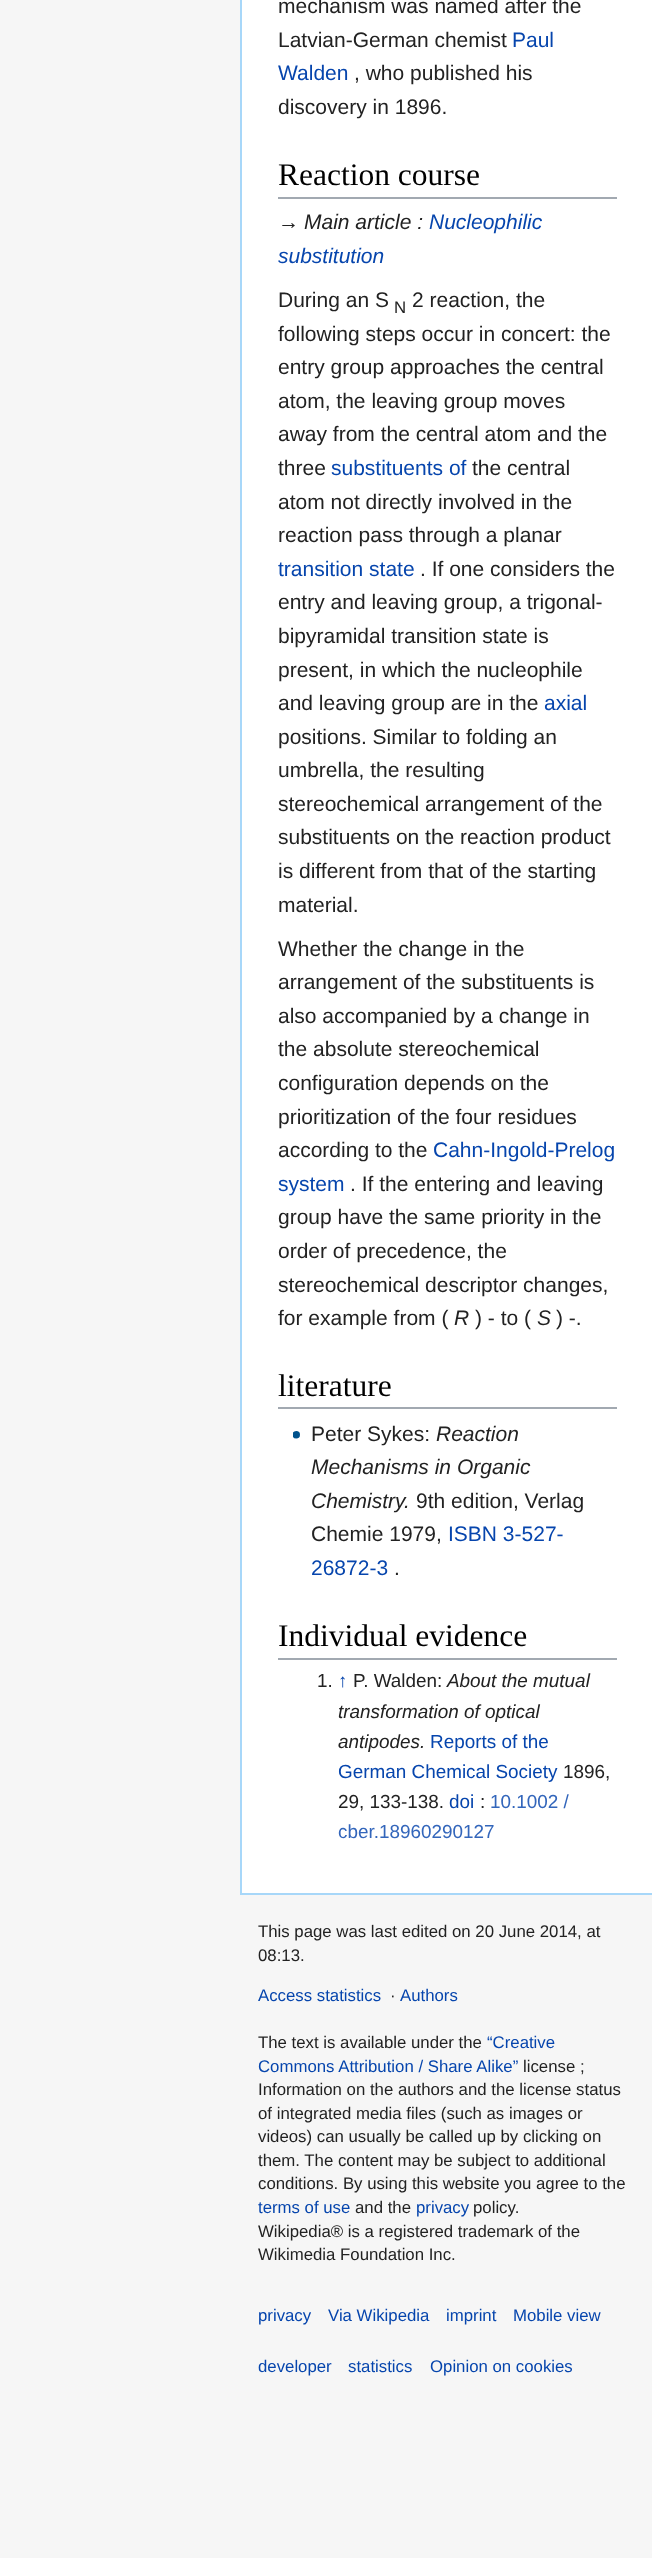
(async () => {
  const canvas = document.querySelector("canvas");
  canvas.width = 652;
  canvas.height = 2558;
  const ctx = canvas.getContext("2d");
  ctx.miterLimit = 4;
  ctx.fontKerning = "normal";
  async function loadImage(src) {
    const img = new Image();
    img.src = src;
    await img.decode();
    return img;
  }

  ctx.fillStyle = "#f6f6f6";
  ctx.fillRect(0, 0, 652, 2558);
  for (const [x, y, w, h, color] of [
    [242, 0, 410, 1893, "#ffffff"],
    [240, 1893, 412, 2, "#a7d7f9"],
    [240, 0, 2, 1895, "#a7d7f9"],
    [278, 197, 339, 2, "#a2a9b1"],
    [278, 1407, 339, 2, "#a2a9b1"],
  ]) {
    ctx.fillStyle = color;
    ctx.fillRect(x, y, w, h);
  }
  ctx.drawImage(await loadImage("img/1.png"), 293, 1431, 7, 8);
  ctx.fillRect(278, 1658, 339, 2);
  ctx.font = "21px Liberation Sans";
  ctx.fillStyle = "#222222";
  ctx.fillText("mechanism was named after the", 278, 13);
  ctx.fillText("Latvian-German chemist", 278, 47);
  ctx.fillStyle = "#0645ad";
  ctx.fillText("Paul", 512, 47);
  ctx.fillText("Walden", 278, 80);
  ctx.fillStyle = "#222222";
  ctx.fillText(", who published his", 354, 80);
  ctx.fillText("discovery in 1896.", 278, 114);
  ctx.font = "31.5px Liberation Serif";
  ctx.fillStyle = "#000000";
  ctx.fillText("Reaction course", 278, 185);
  ctx.font = "21px Liberation Sans";
  ctx.fillStyle = "#222222";
  ctx.fillText("→", 278, 229);
  ctx.font = "italic 21px Liberation Sans";
  ctx.fillText("Main article :", 304, 229);
  ctx.fillStyle = "#0645ad";
  ctx.fillText("Nucleophilic", 429, 229);
  ctx.fillText("substitution", 278, 263);
  ctx.font = "21px Liberation Sans";
  ctx.fillStyle = "#222222";
  ctx.fillText("During an S", 278, 307);
  ctx.font = "16.8px Liberation Sans";
  ctx.fillText("N", 394, 313);
  ctx.font = "21px Liberation Sans";
  for (const [text, x, y] of [
    ["2 reaction, the", 412, 307],
    ["following steps occur in concert: the", 278, 341],
    ["entry group approaches the central", 278, 374],
    ["atom, the leaving group moves", 278, 408],
    ["away from the central atom and the", 278, 441],
    ["three", 278, 475],
  ]) {
    ctx.fillText(text, x, y);
  }
  ctx.fillStyle = "#0645ad";
  ctx.fillText("substituents of", 331, 475);
  ctx.fillStyle = "#222222";
  for (const [text, x, y] of [
    ["the central", 472, 475],
    ["atom not directly involved in the", 278, 509],
    ["reaction pass through a planar", 278, 542],
  ]) {
    ctx.fillText(text, x, y);
  }
  ctx.fillStyle = "#0645ad";
  ctx.fillText("transition state", 278, 576);
  ctx.fillStyle = "#222222";
  for (const [text, x, y] of [
    [". If one considers the", 420, 576],
    ["entry and leaving group, a trigonal-", 278, 609],
    ["bipyramidal transition state is", 278, 643],
    ["present, in which the nucleophile", 278, 677],
    ["and leaving group are in the", 278, 710],
  ]) {
    ctx.fillText(text, x, y);
  }
  ctx.fillStyle = "#0645ad";
  ctx.fillText("axial", 544, 710);
  ctx.fillStyle = "#222222";
  for (const [text, x, y] of [
    ["positions. Similar to folding an", 278, 744],
    ["umbrella, the resulting", 278, 777],
    ["stereochemical arrangement of the", 278, 811],
    ["substituents on the reaction product", 278, 844],
    ["is different from that of the starting", 278, 878],
    ["material.", 278, 912],
    ["Whether the change in the", 278, 956],
    ["arrangement of the substituents is", 278, 989],
    ["also accompanied by a change in", 278, 1023],
    ["the absolute stereochemical", 278, 1056],
    ["configuration depends on the", 278, 1090],
    ["prioritization of the four residues", 278, 1124],
    ["according to the", 278, 1157],
  ]) {
    ctx.fillText(text, x, y);
  }
  ctx.fillStyle = "#0645ad";
  ctx.fillText("Cahn-Ingold-Prelog", 433, 1157);
  ctx.fillText("system", 278, 1191);
  ctx.fillStyle = "#222222";
  for (const [text, x, y] of [
    [". If the entering and leaving", 350, 1191],
    ["group have the same priority in the", 278, 1224],
    ["order of precedence, the", 278, 1258],
    ["stereochemical descriptor changes,", 278, 1292],
    ["for example from (", 278, 1325],
  ]) {
    ctx.fillText(text, x, y);
  }
  ctx.font = "italic 21px Liberation Sans";
  ctx.fillText("R", 454, 1325);
  ctx.font = "21px Liberation Sans";
  ctx.fillText(") - to (", 475, 1325);
  ctx.font = "italic 21px Liberation Sans";
  ctx.fillText("S", 537, 1325);
  ctx.font = "21px Liberation Sans";
  ctx.fillText(") -.", 556, 1325);
  ctx.font = "31.5px Liberation Serif";
  ctx.fillStyle = "#000000";
  ctx.fillText("literature", 278, 1396);
  ctx.font = "21px Liberation Sans";
  ctx.fillStyle = "#222222";
  ctx.fillText("Peter Sykes:", 311, 1441);
  ctx.font = "italic 21px Liberation Sans";
  for (const [text, x, y] of [
    ["Reaction", 436, 1441],
    ["Mechanisms in Organic", 311, 1474],
    ["Chemistry.", 311, 1508],
  ]) {
    ctx.fillText(text, x, y);
  }
  ctx.font = "21px Liberation Sans";
  ctx.fillText("9th edition, Verlag", 416, 1508);
  ctx.fillText("Chemie 1979,", 311, 1541);
  ctx.fillStyle = "#0645ad";
  ctx.fillText("ISBN 3-527-", 448, 1541);
  ctx.fillText("26872-3", 311, 1575);
  ctx.fillStyle = "#222222";
  ctx.fillText(".", 394, 1575);
  ctx.font = "31.5px Liberation Serif";
  ctx.fillStyle = "#000000";
  ctx.fillText("Individual evidence", 278, 1646);
  ctx.font = "18.9px Liberation Sans";
  ctx.fillStyle = "#222222";
  ctx.fillText("1.", 317, 1687);
  ctx.font = "italic 18.9px Liberation Sans";
  ctx.fillStyle = "#0645ad";
  ctx.fillText("↑", 338, 1687);
  ctx.font = "18.9px Liberation Sans";
  ctx.fillStyle = "#222222";
  ctx.fillText("P. Walden:", 353, 1687);
  ctx.font = "italic 18.9px Liberation Sans";
  for (const [text, x, y] of [
    ["About the mutual", 447, 1687],
    ["transformation of optical", 338, 1718],
    ["antipodes.", 338, 1748],
  ]) {
    ctx.fillText(text, x, y);
  }
  ctx.font = "18.9px Liberation Sans";
  ctx.fillStyle = "#0645ad";
  ctx.fillText("Reports of the", 430, 1748);
  ctx.fillText("German Chemical Society", 338, 1778);
  ctx.fillStyle = "#222222";
  ctx.fillText("1896,", 563, 1778);
  ctx.fillText("29, 133-138.", 338, 1808);
  ctx.fillStyle = "#0645ad";
  ctx.fillText("doi", 449, 1808);
  ctx.fillStyle = "#222222";
  ctx.fillText(":", 480, 1808);
  ctx.fillStyle = "#3366bb";
  ctx.fillText("10.1002 /", 490, 1808);
  ctx.fillText("cber.18960290127", 338, 1838);
  ctx.font = "16.8px Liberation Sans";
  ctx.fillStyle = "#222222";
  ctx.fillText("This page was last edited on 20 June 2014, at", 258, 1937);
  ctx.fillText("08:13.", 258, 1961);
  ctx.fillStyle = "#0645ad";
  ctx.fillText("Access statistics", 258, 2001);
  ctx.fillStyle = "#222222";
  ctx.fillText("·", 390, 2001);
  ctx.fillStyle = "#0645ad";
  ctx.fillText("Authors", 400, 2001);
  ctx.fillStyle = "#222222";
  ctx.fillText("The text is available under the", 258, 2048);
  ctx.fillStyle = "#0645ad";
  ctx.fillText("“Creative", 487, 2048);
  ctx.fillText("Commons Attribution / Share Alike”", 258, 2072);
  ctx.fillStyle = "#222222";
  for (const [text, x, y] of [
    ["license ;", 523, 2072],
    ["Information on the authors and the license status", 258, 2095],
    ["of integrated media files (such as images or", 258, 2119],
    ["videos) can usually be called up by clicking on", 258, 2142],
    ["them. The content may be subject to additional", 258, 2166],
    ["conditions. By using this website you agree to the", 258, 2189],
  ]) {
    ctx.fillText(text, x, y);
  }
  ctx.fillStyle = "#0645ad";
  ctx.fillText("terms of use", 258, 2213);
  ctx.fillStyle = "#222222";
  ctx.fillText("and the", 355, 2213);
  ctx.fillStyle = "#0645ad";
  ctx.fillText("privacy", 416, 2213);
  ctx.fillStyle = "#222222";
  for (const [text, x, y] of [
    ["policy.", 473, 2213],
    ["Wikipedia® is a registered trademark of the", 258, 2237],
    ["Wikimedia Foundation Inc.", 258, 2260],
  ]) {
    ctx.fillText(text, x, y);
  }
  ctx.fillStyle = "#0645ad";
  for (const [text, x, y] of [
    ["privacy", 258, 2321],
    ["Via Wikipedia", 328, 2321],
    ["imprint", 446, 2321],
    ["Mobile view", 513, 2321],
    ["developer", 258, 2372],
    ["statistics", 348, 2372],
    ["Opinion on cookies", 430, 2372],
  ]) {
    ctx.fillText(text, x, y);
  }
})();
